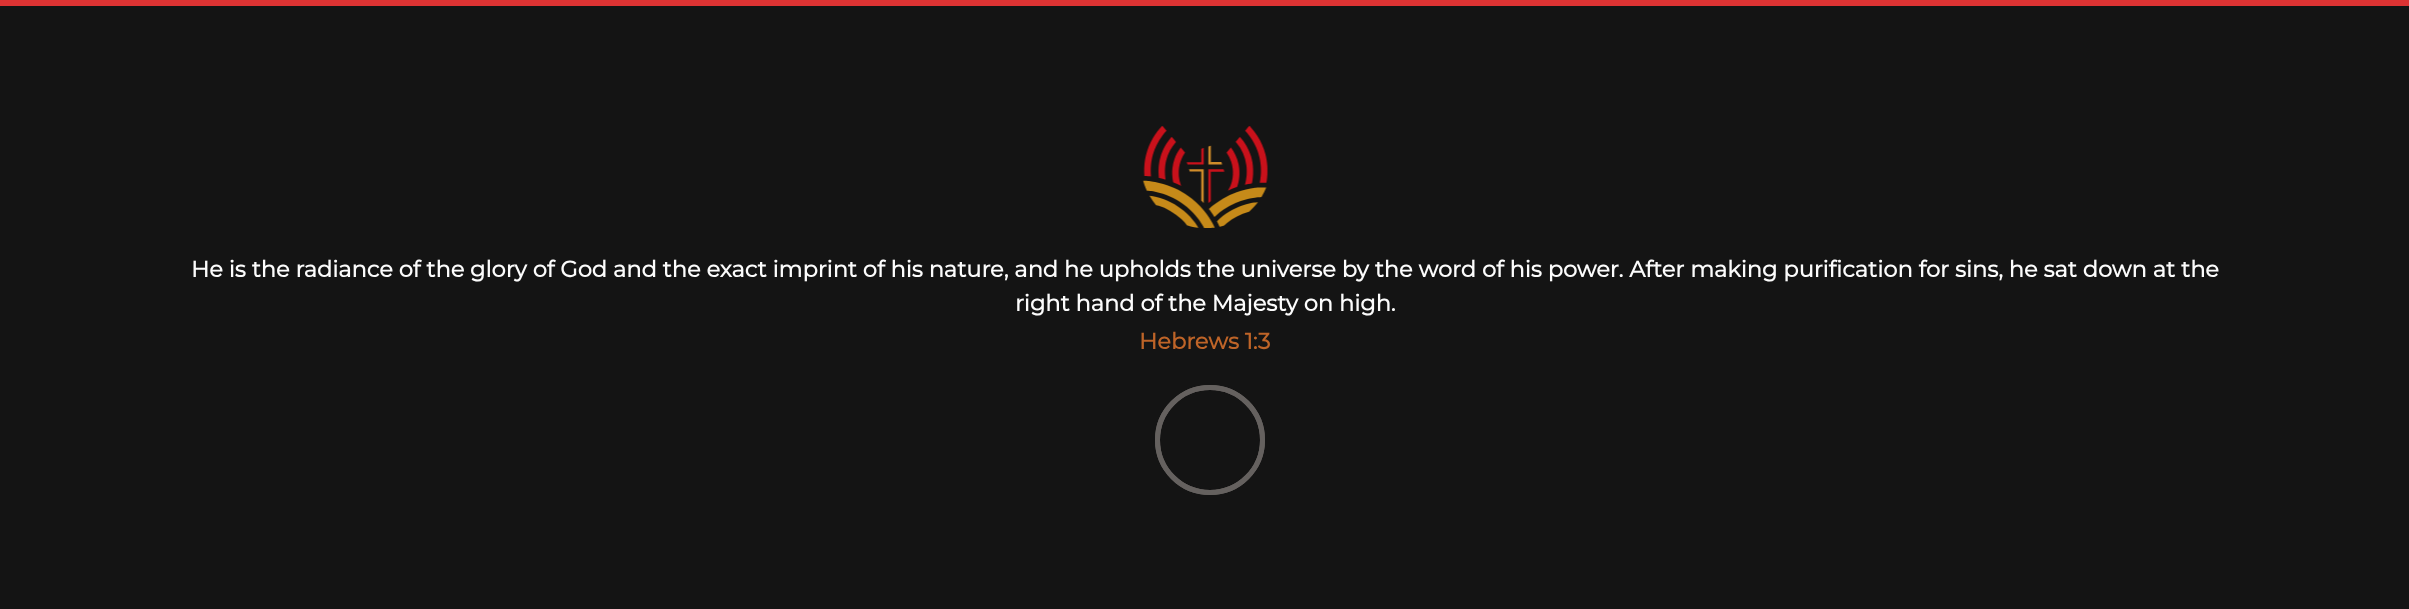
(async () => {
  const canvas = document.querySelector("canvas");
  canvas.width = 2409;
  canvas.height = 609;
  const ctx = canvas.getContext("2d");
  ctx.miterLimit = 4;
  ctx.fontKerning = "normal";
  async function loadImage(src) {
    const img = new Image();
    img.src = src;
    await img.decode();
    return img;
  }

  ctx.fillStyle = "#141414";
  ctx.fillRect(0, 0, 2409, 609);
  ctx.fillStyle = "#dd3333";
  ctx.fillRect(0, 0, 2409, 6);
  ctx.drawImage(await loadImage("img/1.png"), 1142, 126, 126, 102);
  ctx.beginPath();
  ctx.arc(1210, 440, 52.5, 0, Math.PI * 2);
  ctx.strokeStyle = "#65615f";
  ctx.lineWidth = 5;
  ctx.stroke();
  ctx.beginPath();
  ctx.arc(1210, 440, 52.5, 0, Math.PI * 2);
  ctx.stroke();
  ctx.font = "bold 22.5px Montserrat";
  ctx.fillStyle = "#fcfcfc";
  ctx.fillText("He is the radiance of the glory of God and the exact imprint of his nature, and he upholds the universe by the word of his power. After making purification for sins, he sat down at the", 191, 277);
  ctx.fillText("right hand of the Majesty on high.", 1015, 311);
  ctx.fillStyle = "#be6428";
  ctx.fillText("Hebrews 1:3", 1139, 349);
})();
